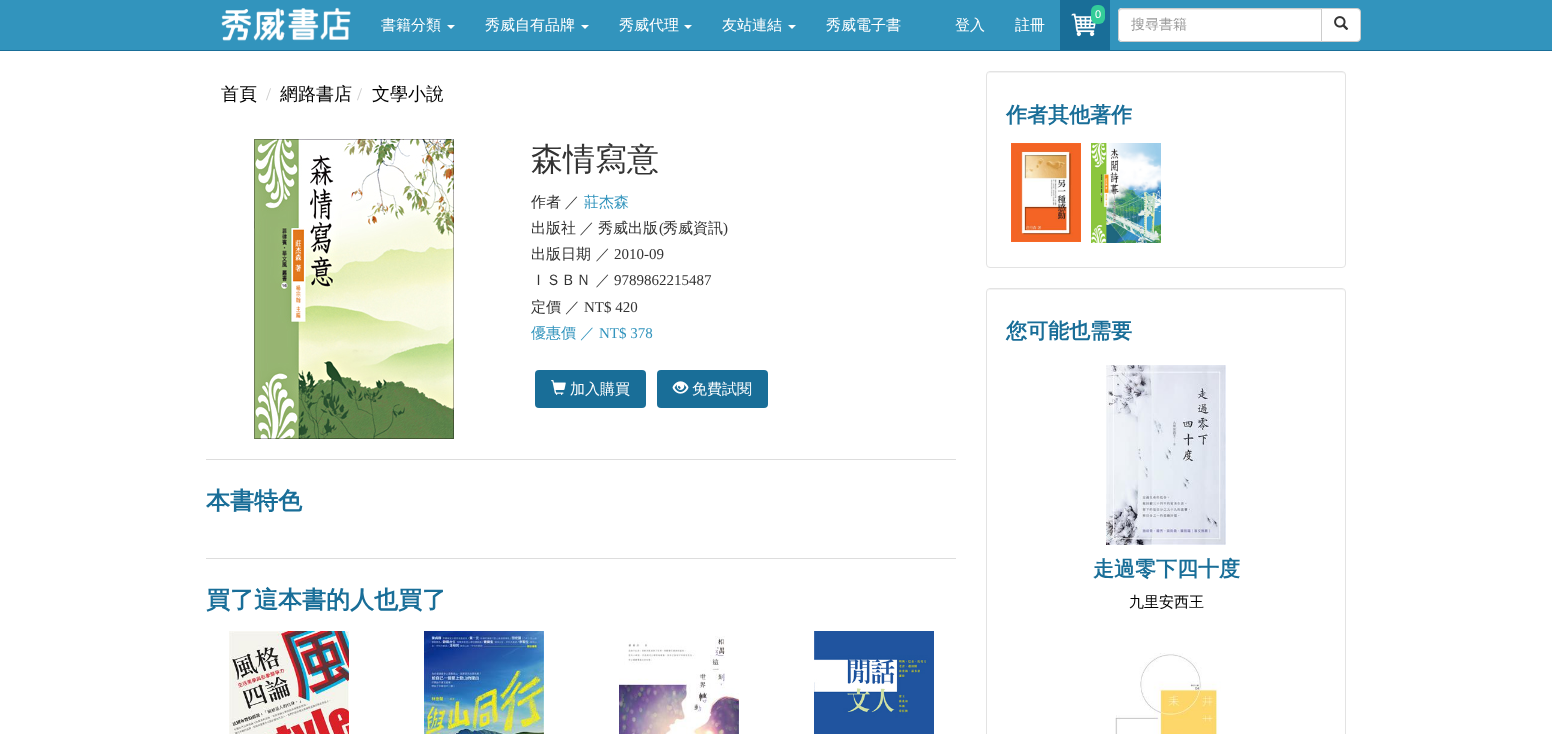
(async () => {
  const canvas = document.querySelector("canvas");
  canvas.width = 1552;
  canvas.height = 734;
  const ctx = canvas.getContext("2d");
  ctx.miterLimit = 4;
  ctx.fontKerning = "normal";
  async function loadImage(src) {
    const img = new Image();
    img.src = src;
    await img.decode();
    return img;
  }
  let path;

  ctx.fillStyle = "#ffffff";
  ctx.fillRect(0, 0, 1552, 734);
  ctx.fillStyle = "#3294bd";
  ctx.fillRect(0, 0, 1552, 50);
  ctx.fillStyle = "#196e98";
  ctx.fillRect(0, 50, 1552, 1);
  ctx.drawImage(await loadImage("img/1.png"), 221, 7, 130, 34);
  ctx.fillStyle = "#ffffff";
  path = new Path2D("M447 25H455L451 29Z");
  ctx.fill(path);
  path = new Path2D("M581 25H589L585 29Z");
  ctx.fill(path);
  path = new Path2D("M684 25H692L688 29Z");
  ctx.fill(path);
  path = new Path2D("M788 25H796L792 29Z");
  ctx.fill(path);
  ctx.fillStyle = "#196e98";
  ctx.fillRect(1060, 0, 50, 50);
  ctx.drawImage(await loadImage("img/2.png"), 1071, 13, 25, 24);
  ctx.fillStyle = "#33cc99";
  ctx.beginPath();
  ctx.roundRect(1091, 5, 14, 19, 6);
  ctx.fill();
  ctx.fillStyle = "#ffffff";
  ctx.beginPath();
  ctx.roundRect(1118, 8, 204, 34, [4, 0, 0, 4]);
  ctx.fill();
  ctx.fillStyle = "#ececec";
  path = new Path2D("M1122 10H1321V9H1122C1120 9 1119 11 1119 13C1119 11 1120 10 1122 10Z");
  ctx.fill(path);
  ctx.beginPath();
  ctx.roundRect(1118.5, 8.5, 203, 33, [3.5, 0, 0, 3.5]);
  ctx.strokeStyle = "#cccccc";
  ctx.stroke();
  ctx.fillStyle = "#ffffff";
  ctx.beginPath();
  ctx.roundRect(1321.5, 8.5, 39, 33, [0, 3.5, 3.5, 0]);
  ctx.fill();
  ctx.stroke();
  ctx.drawImage(await loadImage("img/3.png"), 1334, 16, 15, 14);
  ctx.drawImage(await loadImage("img/4.png"), 254, 139, 200, 300);
  ctx.fillStyle = "#196e98";
  ctx.beginPath();
  ctx.roundRect(535, 370, 111, 38, 4);
  ctx.fill();
  ctx.drawImage(await loadImage("img/5.png"), 551, 380, 15, 15);
  ctx.beginPath();
  ctx.roundRect(657, 370, 111, 38, 4);
  ctx.fill();
  ctx.drawImage(await loadImage("img/6.png"), 672, 381, 17, 13);
  ctx.fillStyle = "#dddddd";
  ctx.fillRect(206, 459, 750, 1);
  ctx.fillRect(206, 558, 750, 1);
  ctx.drawImage(await loadImage("img/7.png"), 229, 631, 120, 103);
  ctx.drawImage(await loadImage("img/8.png"), 424, 631, 120, 103);
  ctx.drawImage(await loadImage("img/9.png"), 619, 636, 120, 98);
  ctx.drawImage(await loadImage("img/10.png"), 814, 631, 120, 103);
  ctx.fillStyle = "#f2f2f2";
  path = new Path2D("M990 73H1342C1344 73 1345 74 1345 76C1345 74 1344 72 1342 72H990L988 73L987 76C987 74 988 73 990 73Z");
  ctx.fill(path);
  ctx.beginPath();
  ctx.roundRect(986.5, 71.5, 359, 196, 3.5);
  ctx.strokeStyle = "#e3e3e3";
  ctx.stroke();
  ctx.drawImage(await loadImage("img/11.png"), 1011, 143, 70, 99);
  ctx.drawImage(await loadImage("img/12.png"), 1091, 143, 70, 100);
  path = new Path2D("M990 290H1342C1344 290 1345 291 1345 293C1345 291 1344 289 1342 289H990L988 290L987 293C987 291 988 290 990 290Z");
  ctx.fill(path);
  ctx.beginPath();
  ctx.roundRect(986.5, 288.5, 359, 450, 3.5);
  ctx.stroke();
  ctx.drawImage(await loadImage("img/13.png"), 1106, 365, 120, 180);
  ctx.drawImage(await loadImage("img/14.png"), 1115, 653, 106, 81);
  ctx.font = "500 15px WenQuanYi Zen Hei";
  ctx.fillStyle = "#ffffff";
  for (const [text, x, y] of [
    ["書籍分類", 381, 30],
    ["秀威自有品牌", 485, 30],
    ["秀威代理", 619, 30],
    ["友站連結", 722, 30],
    ["秀威電子書", 826, 30],
  ]) {
    ctx.fillText(text, x, y);
  }
  ctx.font = "11px Liberation Sans";
  ctx.fillText("0", 1095, 18);
  ctx.font = "500 15px WenQuanYi Zen Hei";
  ctx.fillText("登入", 955, 30);
  ctx.fillText("註冊", 1015, 30);
  ctx.font = "500 14px WenQuanYi Zen Hei";
  ctx.fillStyle = "#999999";
  ctx.fillText("搜尋書籍", 1131, 29);
  ctx.font = "500 18px WenQuanYi Zen Hei";
  ctx.fillStyle = "#000000";
  ctx.fillText("首頁", 221, 100);
  ctx.font = "18px Liberation Serif";
  ctx.fillStyle = "#cccccc";
  ctx.fillText("/", 266, 100);
  ctx.font = "500 18px WenQuanYi Zen Hei";
  ctx.fillStyle = "#000000";
  ctx.fillText("網路書店", 280, 100);
  ctx.font = "18px Liberation Serif";
  ctx.fillStyle = "#cccccc";
  ctx.fillText("/", 357, 100);
  ctx.font = "500 18px WenQuanYi Zen Hei";
  ctx.fillStyle = "#000000";
  ctx.fillText("文學小說", 372, 100);
  ctx.font = "500 32px WenQuanYi Zen Hei";
  ctx.fillStyle = "#333333";
  ctx.fillText("森情寫意", 531, 170);
  ctx.wordSpacing = "-1px";
  ctx.font = "500 15px WenQuanYi Zen Hei";
  ctx.fillText("作者 ／", 531, 207);
  ctx.wordSpacing = "0px";
  ctx.fillStyle = "#3294bd";
  ctx.fillText("莊杰森", 584, 207);
  ctx.wordSpacing = "-1px";
  ctx.fillStyle = "#333333";
  ctx.fillText("出版社 ／ 秀威出版", 531, 233);
  ctx.wordSpacing = "0px";
  ctx.font = "15px Liberation Serif";
  ctx.fillText("(", 659, 233);
  ctx.font = "500 15px WenQuanYi Zen Hei";
  ctx.fillText("秀威資訊", 663, 233);
  ctx.font = "15px Liberation Serif";
  ctx.fillText(")", 723, 233);
  ctx.font = "500 15px WenQuanYi Zen Hei";
  ctx.fillText("出版日期 ／", 531, 259);
  ctx.font = "15px Liberation Serif";
  ctx.fillText("2010-09", 614, 259);
  ctx.font = "500 15px WenQuanYi Zen Hei";
  ctx.fillText("ＩＳＢＮ ／", 531, 285);
  ctx.font = "15px Liberation Serif";
  ctx.fillText("9789862215487", 614, 285);
  ctx.font = "500 15px WenQuanYi Zen Hei";
  ctx.fillText("定價", 531, 312);
  ctx.fillText("／", 565, 312);
  ctx.font = "15px Liberation Serif";
  ctx.fillText("NT$ 420", 584, 312);
  ctx.font = "500 15px WenQuanYi Zen Hei";
  ctx.fillStyle = "#3294bd";
  ctx.fillText("優惠價", 531, 338);
  ctx.fillText("／", 580, 338);
  ctx.font = "15px Liberation Serif";
  ctx.fillText("NT$ 378", 599, 338);
  ctx.font = "500 15px WenQuanYi Zen Hei";
  ctx.fillStyle = "#ffffff";
  ctx.fillText("加入購買", 570, 394);
  ctx.fillText("免費試閱", 692, 394);
  ctx.font = "bold 24px WenQuanYi Zen Hei";
  ctx.fillStyle = "#196e98";
  ctx.fillText("本書特色", 206, 509);
  ctx.fillText("買了這本書的人也買了", 206, 608);
  ctx.font = "bold 21px WenQuanYi Zen Hei";
  for (const [text, x, y] of [
    ["作者其他著作", 1006, 122],
    ["您可能也需要", 1006, 338],
    ["走過零下四十度", 1093, 576],
  ]) {
    ctx.fillText(text, x, y);
  }
  ctx.font = "500 15px WenQuanYi Zen Hei";
  ctx.fillStyle = "#000000";
  ctx.fillText("九里安西王", 1129, 607);
})();
